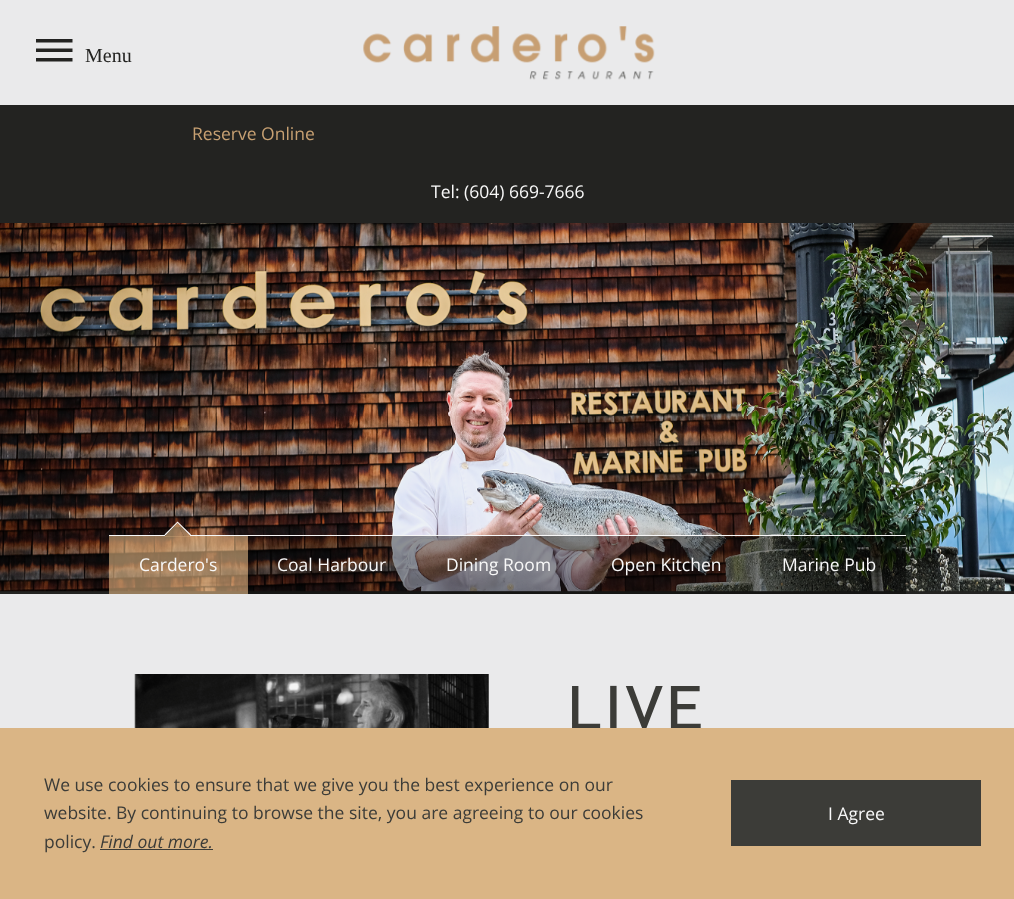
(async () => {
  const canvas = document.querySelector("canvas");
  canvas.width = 1014;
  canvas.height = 899;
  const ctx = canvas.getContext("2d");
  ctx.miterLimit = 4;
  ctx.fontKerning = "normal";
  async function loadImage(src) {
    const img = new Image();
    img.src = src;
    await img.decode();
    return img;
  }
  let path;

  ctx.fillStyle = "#232321";
  ctx.fillRect(0, 0, 1014, 899);
  ctx.fillStyle = "#eaeaeb";
  ctx.fillRect(0, 0, 1014, 105);
  ctx.fillStyle = "#232321";
  path = new Path2D("M36 39H72.5V42.5H36ZM36 48.5H72.5V52H36ZM36 58H72.5V61.5H36Z");
  ctx.fill(path);
  ctx.drawImage(await loadImage("img/1.png"), 363, 26, 292, 54);
  ctx.drawImage(await loadImage("img/2.png"), 0, 223, 1014, 369);
  ctx.fillStyle = "rgba(227, 183, 132, 0.6)";
  ctx.fillRect(109, 536, 139, 58);
  ctx.fillStyle = "#f8f8f8";
  ctx.fillRect(190, 535, 716, 1);
  path = new Path2D("M164.5 534.5L165.5 535.5L177.5 523L190 535.5L191 534.5L177.5 521.5Z");
  ctx.fill(path);
  ctx.fillStyle = "rgba(227, 183, 132, 0.6)";
  path = new Path2D("M164.5 536.5L177.5 523L184 536.5Z");
  ctx.fill(path);
  ctx.fillStyle = "#f8f8f8";
  ctx.fillRect(109, 535, 56, 1);
  ctx.fillStyle = "rgba(227, 183, 132, 0.6)";
  path = new Path2D("M177.5 523L191 536.5H184Z");
  ctx.fill(path);
  for (const [x, y, w, h, color] of [
    [248, 536, 168, 58, "rgba(1, 1, 1, 0.4)"],
    [416, 536, 165, 58, "rgba(1, 1, 1, 0.4)"],
    [581, 536, 172, 58, "rgba(1, 1, 1, 0.4)"],
    [753, 536, 153, 58, "rgba(1, 1, 1, 0.4)"],
    [0, 594, 1014, 134, "#eaeaeb"],
  ]) {
    ctx.fillStyle = color;
    ctx.fillRect(x, y, w, h);
  }
  ctx.drawImage(await loadImage("img/3.png"), 134, 674, 355, 54);
  ctx.font = "20px Liberation Serif";
  ctx.fillStyle = "#232321";
  ctx.fillText("Menu", 85, 62);
  ctx.font = "17.5px Open Sans";
  ctx.fillStyle = "#c7a072";
  ctx.fillText("Reserve Online", 192, 140);
  ctx.fillStyle = "#f8f8f8";
  for (const [text, x, y] of [
    ["Tel: (604) 669-7666", 431, 198],
    ["Cardero's", 139, 571],
    ["Coal Harbour", 277, 571],
    ["Dining Room", 446, 571],
    ["Open Kitchen", 611, 571],
    ["Marine Pub", 782, 571],
  ]) {
    ctx.fillText(text, x, y);
  }
  ctx.letterSpacing = "2.5px";
  ctx.font = "57.5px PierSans";
  ctx.fillStyle = "#3c3c38";
  ctx.fillText("LIVE", 568, 729);
  ctx.fillStyle = "#dab585";
  ctx.fillRect(0, 728, 1014, 171);
  ctx.letterSpacing = "0px";
  ctx.font = "17.5px Open Sans";
  ctx.fillStyle = "#3c3c38";
  for (const [text, x, y] of [
    ["We use cookies to ensure that we give you the best experience on our", 44, 791],
    ["website. By continuing to browse the site, you are agreeing to our cookies", 44, 819],
    ["policy.", 44, 848],
  ]) {
    ctx.fillText(text, x, y);
  }
  ctx.font = "italic 17.5px Open Sans";
  ctx.fillText("Find out more.", 100, 848);
  ctx.fillRect(100, 849, 113, 1);
  ctx.fillRect(731, 780, 250, 66);
  ctx.font = "17.5px Open Sans";
  ctx.fillStyle = "#f8f8f8";
  ctx.fillText("I Agree", 828, 820);
})();
